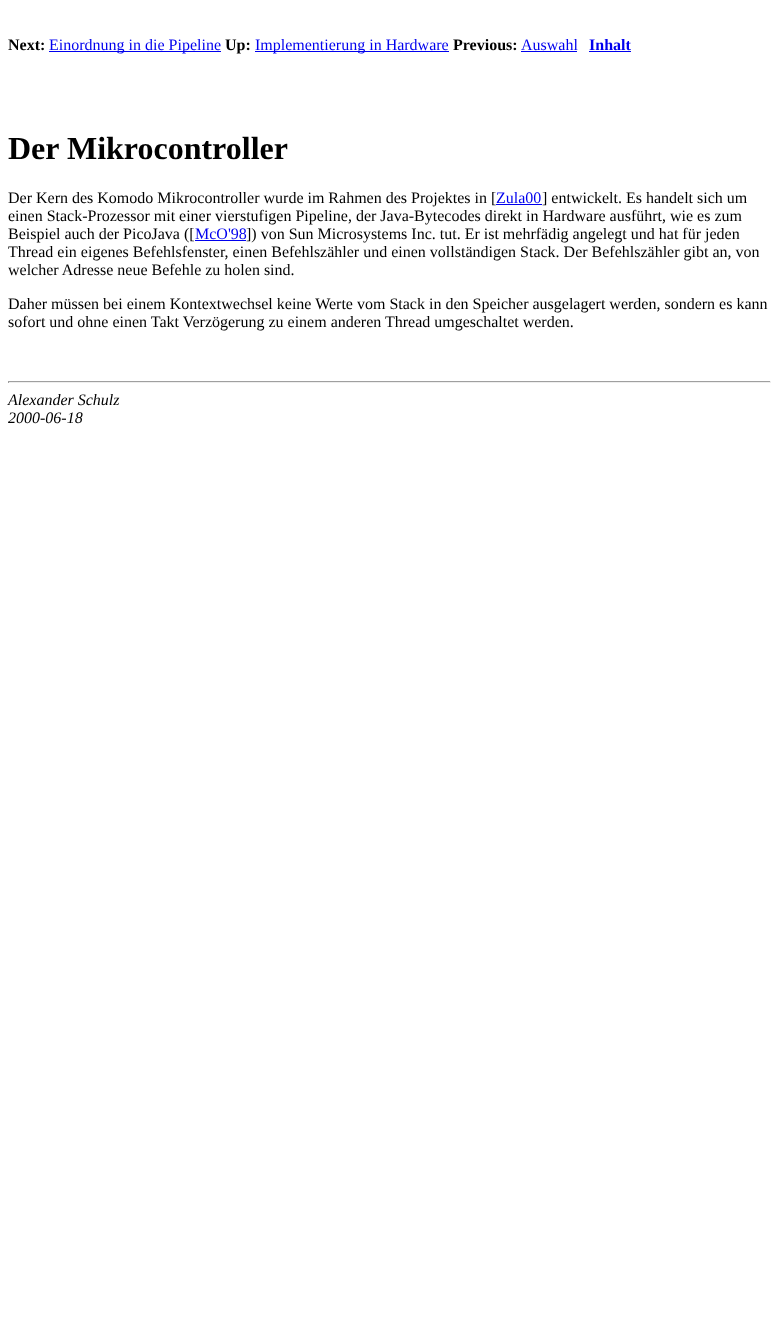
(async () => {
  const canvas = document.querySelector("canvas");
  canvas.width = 779;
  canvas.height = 1321;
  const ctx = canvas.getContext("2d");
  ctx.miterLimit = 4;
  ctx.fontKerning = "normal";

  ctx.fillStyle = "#ffffff";
  ctx.fillRect(0, 0, 779, 1321);
  for (const [x, y, w, h, color] of [
    [49, 51, 172, 1, "#0000ee"],
    [255, 51, 194, 1, "#0000ee"],
    [521, 51, 56, 1, "#0000ee"],
    [589, 51, 42, 1, "#0000ee"],
    [496, 204, 46, 1, "#0000ee"],
    [195, 240, 51, 1, "#0000ee"],
    [8, 381, 763, 1, "#9f9f9f"],
    [770, 381, 1, 2, "#eeeeee"],
    [8, 382, 763, 1, "#eeeeee"],
    [8, 381, 1, 2, "#9f9f9f"],
  ]) {
    ctx.fillStyle = color;
    ctx.fillRect(x, y, w, h);
  }
  ctx.font = "bold 16px Liberation Serif";
  ctx.fillStyle = "#000000";
  ctx.fillText("Next:", 8, 50);
  ctx.font = "16px Liberation Serif";
  ctx.fillStyle = "#0000ee";
  ctx.fillText("Einordnung in die Pipeline", 49, 50);
  ctx.font = "bold 16px Liberation Serif";
  ctx.fillStyle = "#000000";
  ctx.fillText("Up:", 225, 50);
  ctx.font = "16px Liberation Serif";
  ctx.fillStyle = "#0000ee";
  ctx.fillText("Implementierung in Hardware", 255, 50);
  ctx.font = "bold 16px Liberation Serif";
  ctx.fillStyle = "#000000";
  ctx.fillText("Previous:", 453, 50);
  ctx.font = "16px Liberation Serif";
  ctx.fillStyle = "#0000ee";
  ctx.fillText("Auswahl", 521, 50);
  ctx.font = "bold 16px Liberation Serif";
  ctx.fillText("Inhalt", 589, 50);
  ctx.font = "bold 32px Liberation Serif";
  ctx.fillStyle = "#000000";
  ctx.fillText("Der Mikrocontroller", 8, 159);
  ctx.font = "16px Liberation Serif";
  ctx.fillText("Der Kern des Komodo Mikrocontroller wurde im Rahmen des Projektes in [", 8, 203);
  ctx.fillStyle = "#0000ee";
  ctx.fillText("Zula00", 496, 203);
  ctx.fillStyle = "#000000";
  for (const [text, x, y] of [
    ["] entwickelt. Es handelt sich um", 542, 203],
    ["einen Stack-Prozessor mit einer vierstufigen Pipeline, der Java-Bytecodes direkt in Hardware ausführt, wie es zum", 8, 221],
    ["Beispiel auch der PicoJava ([", 8, 239],
  ]) {
    ctx.fillText(text, x, y);
  }
  ctx.fillStyle = "#0000ee";
  ctx.fillText("McO'98", 195, 239);
  ctx.fillStyle = "#000000";
  for (const [text, x, y] of [
    ["]) von Sun Microsystems Inc. tut. Er ist mehrfädig angelegt und hat für jeden", 246, 239],
    ["Thread ein eigenes Befehlsfenster, einen Befehlszähler und einen vollständigen Stack. Der Befehlszähler gibt an, von", 8, 257],
    ["welcher Adresse neue Befehle zu holen sind.", 8, 275],
    ["Daher müssen bei einem Kontextwechsel keine Werte vom Stack in den Speicher ausgelagert werden, sondern es kann", 8, 309],
    ["sofort und ohne einen Takt Verzögerung zu einem anderen Thread umgeschaltet werden.", 8, 327],
  ]) {
    ctx.fillText(text, x, y);
  }
  ctx.font = "italic 16px Liberation Serif";
  ctx.fillText("Alexander Schulz", 8, 405);
  ctx.fillText("2000-06-18", 8, 423);
})();
